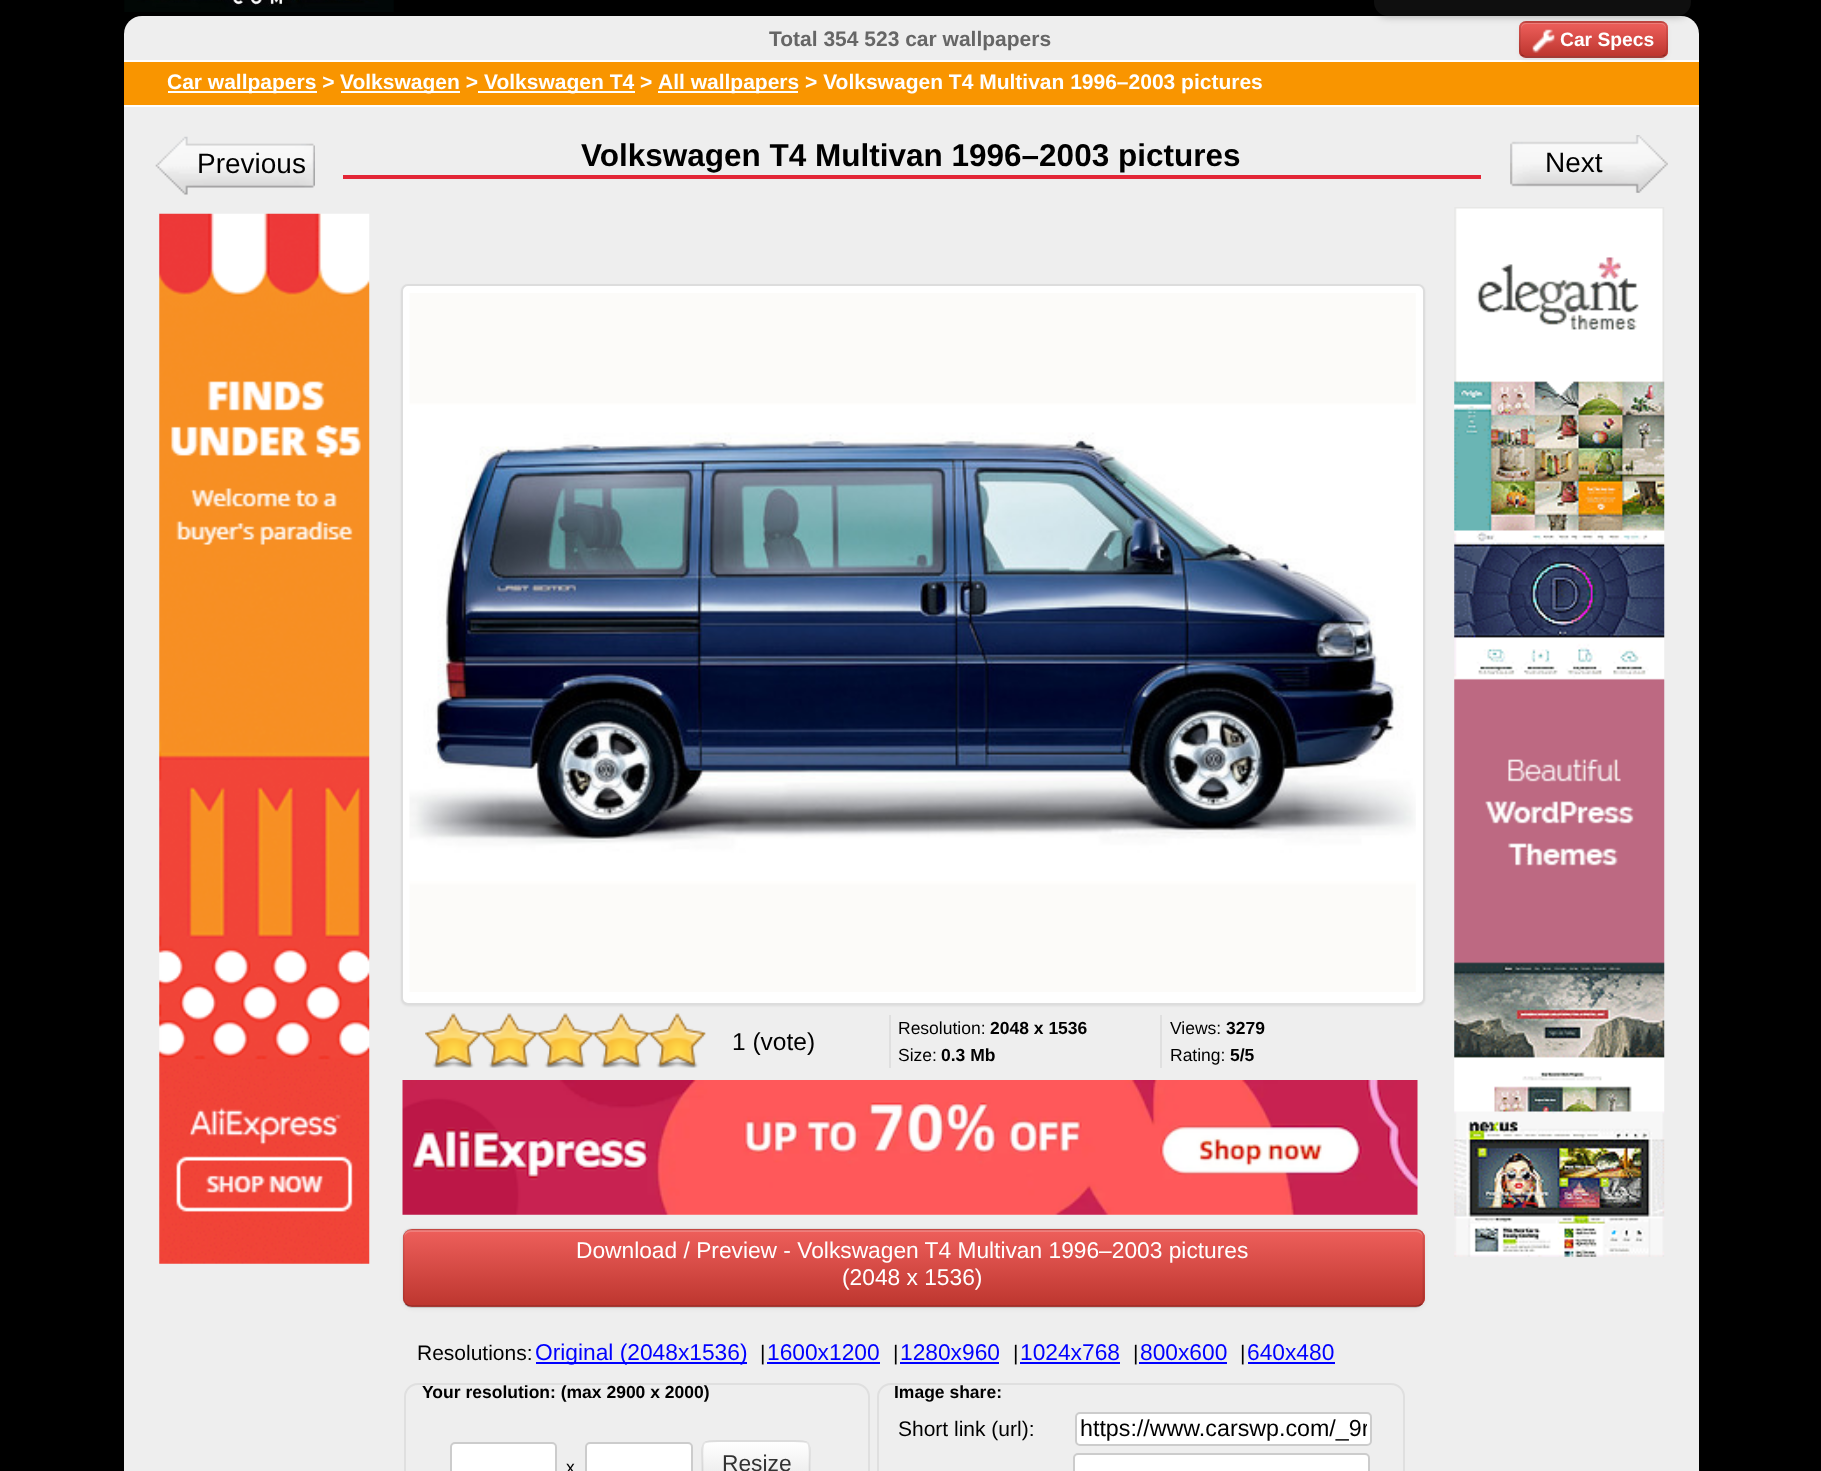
(async () => {
  const canvas = document.querySelector("canvas");
  canvas.width = 1821;
  canvas.height = 1471;
  const ctx = canvas.getContext("2d");
  ctx.miterLimit = 4;
  ctx.fontKerning = "normal";
  async function loadImage(src) {
    const img = new Image();
    img.src = src;
    await img.decode();
    return img;
  }
  let gradient, path;

  ctx.fillStyle = "#000000";
  ctx.fillRect(0, 0, 1821, 1471);
  ctx.drawImage(await loadImage("img/1.png"), 124, 0, 270, 12);
  ctx.fillStyle = "#eeeeee";
  ctx.beginPath();
  ctx.roundRect(124, 16, 1575, 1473, 18);
  ctx.fill();
  ctx.fillStyle = "#f99500";
  ctx.fillRect(124, 62, 1575, 43);
  ctx.fillStyle = "#ffffff";
  ctx.fillRect(124, 60, 1575, 2);
  ctx.fillStyle = "rgba(0, 0, 0, 0.05)";
  ctx.filter = "blur(2px)";
  ctx.beginPath();
  ctx.roundRect(1519, 23, 149, 37, 7);
  ctx.fill();
  ctx.filter = "none";
  ctx.fillStyle = "#da4f49";
  ctx.beginPath();
  ctx.roundRect(1519, 21, 149, 37, 7);
  ctx.fill();
  ctx.save();
  ctx.beginPath();
  ctx.roundRect(1519, 21, 149, 37, 7);
  ctx.clip();
  gradient = ctx.createLinearGradient(1593, 23, 1593, 56);
  gradient.addColorStop(0, "#ee5f5b");
  gradient.addColorStop(1, "#bd362f");
  ctx.fillStyle = gradient;
  ctx.fillRect(1519, 23, 149, 33);
  ctx.restore();
  ctx.fillStyle = "rgba(255, 255, 255, 0.2)";
  path = new Path2D("M1526 24H1661C1664 24 1666 27 1666 30V28C1666 25 1664 23 1661 23H1526C1523 23 1521 25 1521 28V30C1521 27 1523 24 1526 24Z");
  ctx.fill(path);
  path = new Path2D("M1665 55C1664 56 1662.5 57 1661 57H1526C1524.5 57 1523 56 1521.5 55");
  ctx.strokeStyle = "rgba(0, 0, 0, 0.25)";
  ctx.lineWidth = 1.8;
  ctx.stroke(path);
  path = new Path2D("M1521.5 55C1518.5 51.5 1520 40 1520 35.5C1520 31 1518.5 22 1526 22H1661C1668 22 1667 31 1667 35.5C1667 40 1668.5 51.5 1665 55");
  ctx.strokeStyle = "rgba(0, 0, 0, 0.1)";
  ctx.stroke(path);
  ctx.drawImage(await loadImage("img/2.png"), 1532, 29, 23, 24);
  ctx.fillStyle = "rgba(0, 0, 0, 0.3)";
  ctx.filter = "blur(4.5px)";
  ctx.beginPath();
  ctx.roundRect(1374, -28, 317, 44, 14);
  ctx.fill();
  ctx.filter = "none";
  ctx.fillStyle = "#0f0f0f";
  ctx.beginPath();
  ctx.roundRect(1374, -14, 317, 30, 14);
  ctx.fill();
  for (const [x, y, w, h, color] of [
    [124, 105, 1575, 2, "#ffffff"],
    [168, 91, 149, 2, "#ffffff"],
    [341, 91, 119, 2, "#ffffff"],
    [478, 91, 157, 2, "#ffffff"],
    [658, 91, 140, 2, "#ffffff"],
  ]) {
    ctx.fillStyle = color;
    ctx.fillRect(x, y, w, h);
  }
  ctx.drawImage(await loadImage("img/3.png"), 155, 136, 160, 59);
  ctx.fillStyle = "#e32636";
  ctx.fillRect(343, 175, 1138, 4);
  ctx.drawImage(await loadImage("img/4.png"), 1510, 135, 158, 58);
  ctx.drawImage(await loadImage("img/5.png"), 159, 213, 211, 1051);
  ctx.fillStyle = "rgba(0, 0, 0, 0.07)";
  ctx.filter = "blur(1px)";
  ctx.beginPath();
  ctx.roundRect(401, 285, 1024, 721, 7);
  ctx.fill();
  ctx.filter = "none";
  ctx.fillStyle = "#ffffff";
  ctx.beginPath();
  ctx.roundRect(402, 285, 1022, 719, 6);
  ctx.fill();
  ctx.strokeStyle = "#dddddd";
  ctx.lineWidth = 2;
  ctx.stroke();
  ctx.drawImage(await loadImage("img/6.png"), 409, 293, 1007, 699);
  ctx.drawImage(await loadImage("img/7.png"), 425, 1013, 281, 55);
  ctx.drawImage(await loadImage("img/8.png"), 425, 1013, 281, 55);
  ctx.fillStyle = "#dfdfdf";
  ctx.fillRect(889, 1015, 2, 53);
  ctx.fillRect(1160, 1015, 2, 53);
  ctx.drawImage(await loadImage("img/9.png"), 402, 1080, 1016, 135);
  ctx.fillStyle = "rgba(0, 0, 0, 0.05)";
  ctx.filter = "blur(2px)";
  ctx.beginPath();
  ctx.roundRect(403, 1230, 1022, 79, 9);
  ctx.fill();
  ctx.filter = "none";
  ctx.fillStyle = "#da4f49";
  ctx.beginPath();
  ctx.roundRect(403, 1229, 1022, 78, 9);
  ctx.fill();
  ctx.save();
  ctx.beginPath();
  ctx.roundRect(403, 1229, 1022, 78, 9);
  ctx.clip();
  gradient = ctx.createLinearGradient(914, 1230, 914, 1306);
  gradient.addColorStop(0, "#ee5f5b");
  gradient.addColorStop(1, "#bd362f");
  ctx.fillStyle = gradient;
  ctx.fillRect(403, 1230, 1022, 76);
  ctx.restore();
  ctx.fillStyle = "rgba(255, 255, 255, 0.2)";
  path = new Path2D("M411 1232H1416C1420 1232 1423 1235 1423 1239V1237C1423 1233 1420 1230 1416 1230H411C407 1230 404 1233 404 1237V1239C404 1235 407 1232 411 1232Z");
  ctx.fill(path);
  path = new Path2D("M1421.5 1304C1420 1305.5 1418 1306.5 1416 1306.5H411C409 1306.5 407 1305.5 405.5 1304");
  ctx.strokeStyle = "rgba(0, 0, 0, 0.25)";
  ctx.lineWidth = 1.8;
  ctx.stroke(path);
  path = new Path2D("M405.5 1304C404 1302.5 403.5 1300.5 403.5 1298.5V1237C403.5 1235 404 1233 405.5 1231.5C407 1230 409 1229.5 411 1229.5H1416C1418 1229.5 1420 1230 1421.5 1231.5C1423 1233 1423.5 1235 1423.5 1237V1298.5C1423.5 1300.5 1423 1302.5 1421.5 1304");
  ctx.strokeStyle = "rgba(0, 0, 0, 0.1)";
  ctx.stroke(path);
  for (const [x, y, w, h, color] of [
    [536, 1362, 211, 2, "#0000ff"],
    [767, 1362, 113, 2, "#0000ff"],
    [900, 1362, 99, 2, "#0000ff"],
    [1020, 1362, 100, 2, "#0000ff"],
    [1139, 1362, 88, 2, "#0000ff"],
    [1248, 1362, 87, 2, "#0000ff"],
  ]) {
    ctx.fillStyle = color;
    ctx.fillRect(x, y, w, h);
  }
  ctx.beginPath();
  ctx.roundRect(405, 1384, 464, 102, 13);
  ctx.strokeStyle = "#dfdfdf";
  ctx.lineWidth = 2;
  ctx.stroke();
  ctx.fillStyle = "#ffffff";
  ctx.beginPath();
  ctx.roundRect(451, 1443, 105, 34, 4);
  ctx.fill();
  ctx.strokeStyle = "#cccccc";
  ctx.stroke();
  ctx.beginPath();
  ctx.roundRect(586, 1443, 106, 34, 4);
  ctx.fill();
  ctx.stroke();
  ctx.fillStyle = "#f5f5f5";
  ctx.beginPath();
  ctx.roundRect(702, 1440, 108, 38, 7);
  ctx.fill();
  ctx.save();
  ctx.beginPath();
  ctx.roundRect(702, 1440, 108, 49, 7);
  ctx.clip();
  gradient = ctx.createLinearGradient(756, 1442, 756, 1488);
  gradient.addColorStop(0, "#ffffff");
  gradient.addColorStop(1, "#e6e6e6");
  ctx.fillStyle = gradient;
  ctx.fillRect(702, 1442, 108, 29);
  ctx.restore();
  ctx.fillStyle = "rgba(255, 255, 255, 0.2)";
  path = new Path2D("M709 1444H803C806 1444 808 1446 808 1449V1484L807 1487C808 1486 809 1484 809 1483V1447C809 1444 807 1442 804 1442H709C706 1442 704 1444 704 1447V1449C704 1446 706 1444 709 1444Z");
  ctx.fill(path);
  path = new Path2D("M704.5 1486.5C702 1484 702.5 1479.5 702.5 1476.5V1465C702.5 1439 699 1441 724.5 1441H787.5C813 1441 809.5 1439 809.5 1465V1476.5C809.5 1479.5 810 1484 807.5 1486.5");
  ctx.strokeStyle = "rgba(0, 0, 0, 0.1)";
  ctx.lineWidth = 1.8;
  ctx.stroke(path);
  ctx.beginPath();
  ctx.roundRect(878, 1384, 526, 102, 13);
  ctx.strokeStyle = "#dfdfdf";
  ctx.lineWidth = 2;
  ctx.stroke();
  ctx.fillStyle = "#ffffff";
  ctx.beginPath();
  ctx.roundRect(1076, 1413, 295, 32, 4);
  ctx.fill();
  ctx.strokeStyle = "#cccccc";
  ctx.stroke();
  ctx.beginPath();
  ctx.roundRect(1074, 1454, 295, 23, 4);
  ctx.fill();
  ctx.stroke();
  ctx.drawImage(await loadImage("img/10.png"), 1454, 207, 211, 1050);
  ctx.font = "bold 21px Liberation Sans";
  ctx.fillStyle = "#666666";
  ctx.fillText("Total 354 523 car wallpapers", 769, 46);
  ctx.font = "bold 19.25px Liberation Sans";
  ctx.fillStyle = "#ffffff";
  ctx.fillText("Car Specs", 1560, 46);
  ctx.font = "bold 21px Liberation Sans";
  for (const [text, x, y] of [
    ["Car wallpapers >", 167, 89],
    ["Volkswagen >", 340, 89],
    ["Volkswagen T4 >", 484, 89],
    ["All wallpapers > Volkswagen T4 Multivan 1996–2003 pictures", 658, 89],
  ]) {
    ctx.fillText(text, x, y);
  }
  ctx.font = "28px Liberation Sans";
  ctx.fillStyle = "#000000";
  ctx.fillText("Previous", 197, 173);
  ctx.font = "bold 31.5px Liberation Sans";
  ctx.fillText("Volkswagen T4 Multivan 1996–2003 pictures", 581, 166);
  ctx.font = "28px Liberation Sans";
  ctx.fillText("Next", 1545, 172);
  ctx.font = "24.5px Liberation Sans";
  ctx.fillText("1 (vote)", 732, 1050);
  ctx.font = "17.5px Liberation Sans";
  ctx.fillText("Resolution:", 898, 1034);
  ctx.font = "bold 17.5px Liberation Sans";
  ctx.fillText("2048 x 1536", 990, 1034);
  ctx.font = "17.5px Liberation Sans";
  ctx.fillText("Size:", 898, 1061);
  ctx.font = "bold 17.5px Liberation Sans";
  ctx.fillText("0.3 Mb", 941, 1061);
  ctx.font = "17.5px Liberation Sans";
  ctx.fillText("Views:", 1170, 1034);
  ctx.font = "bold 17.5px Liberation Sans";
  ctx.fillText("3279", 1226, 1034);
  ctx.font = "17.5px Liberation Sans";
  ctx.fillText("Rating:", 1170, 1061);
  ctx.font = "bold 17.5px Liberation Sans";
  ctx.fillText("5/5", 1230, 1061);
  ctx.font = "22.75px Liberation Sans";
  ctx.fillStyle = "#ffffff";
  ctx.fillText("Download / Preview - Volkswagen T4 Multivan 1996–2003 pictures", 576, 1258);
  ctx.fillText("(2048 x 1536)", 842, 1285);
  ctx.font = "21px Liberation Sans";
  ctx.fillStyle = "#000000";
  ctx.fillText("Resolutions:", 417, 1360);
  ctx.font = "22.75px Liberation Sans";
  ctx.fillStyle = "#0000ff";
  ctx.fillText("Original (2048x1536)", 535, 1360);
  ctx.font = "21px Liberation Sans";
  ctx.fillStyle = "#000000";
  ctx.fillText("|", 760, 1360);
  ctx.font = "22.75px Liberation Sans";
  ctx.fillStyle = "#0000ff";
  ctx.fillText("1600x1200", 767, 1360);
  ctx.font = "21px Liberation Sans";
  ctx.fillStyle = "#000000";
  ctx.fillText("|", 893, 1360);
  ctx.font = "22.75px Liberation Sans";
  ctx.fillStyle = "#0000ff";
  ctx.fillText("1280x960", 900, 1360);
  ctx.font = "21px Liberation Sans";
  ctx.fillStyle = "#000000";
  ctx.fillText("|", 1013, 1360);
  ctx.font = "22.75px Liberation Sans";
  ctx.fillStyle = "#0000ff";
  ctx.fillText("1024x768", 1020, 1360);
  ctx.font = "21px Liberation Sans";
  ctx.fillStyle = "#000000";
  ctx.fillText("|", 1133, 1360);
  ctx.font = "22.75px Liberation Sans";
  ctx.fillStyle = "#0000ff";
  ctx.fillText("800x600", 1140, 1360);
  ctx.font = "21px Liberation Sans";
  ctx.fillStyle = "#000000";
  ctx.fillText("|", 1240, 1360);
  ctx.font = "22.75px Liberation Sans";
  ctx.fillStyle = "#0000ff";
  ctx.fillText("640x480", 1247, 1360);
  ctx.font = "bold 17.5px Liberation Sans";
  ctx.fillStyle = "#000000";
  ctx.fillText("Your resolution: (max 2900 x 2000)", 422, 1398);
  ctx.font = "17.5px Liberation Sans";
  ctx.fillText("x", 566, 1473);
  ctx.font = "22.75px Liberation Sans";
  ctx.fillStyle = "#333333";
  ctx.fillText("Resize", 722, 1471);
  ctx.font = "bold 17.5px Liberation Sans";
  ctx.fillStyle = "#000000";
  ctx.fillText("Image share:", 894, 1398);
  ctx.font = "21px Liberation Sans";
  ctx.fillText("Short link (url):", 898, 1436);
  ctx.save();
  ctx.beginPath();
  ctx.rect(1080, 1416, 287, 26);
  ctx.clip();
  ctx.font = "23.25px Liberation Sans";
  ctx.fillText("https://www.carswp.com/_9r", 1080, 1436);
  ctx.restore();
})();
